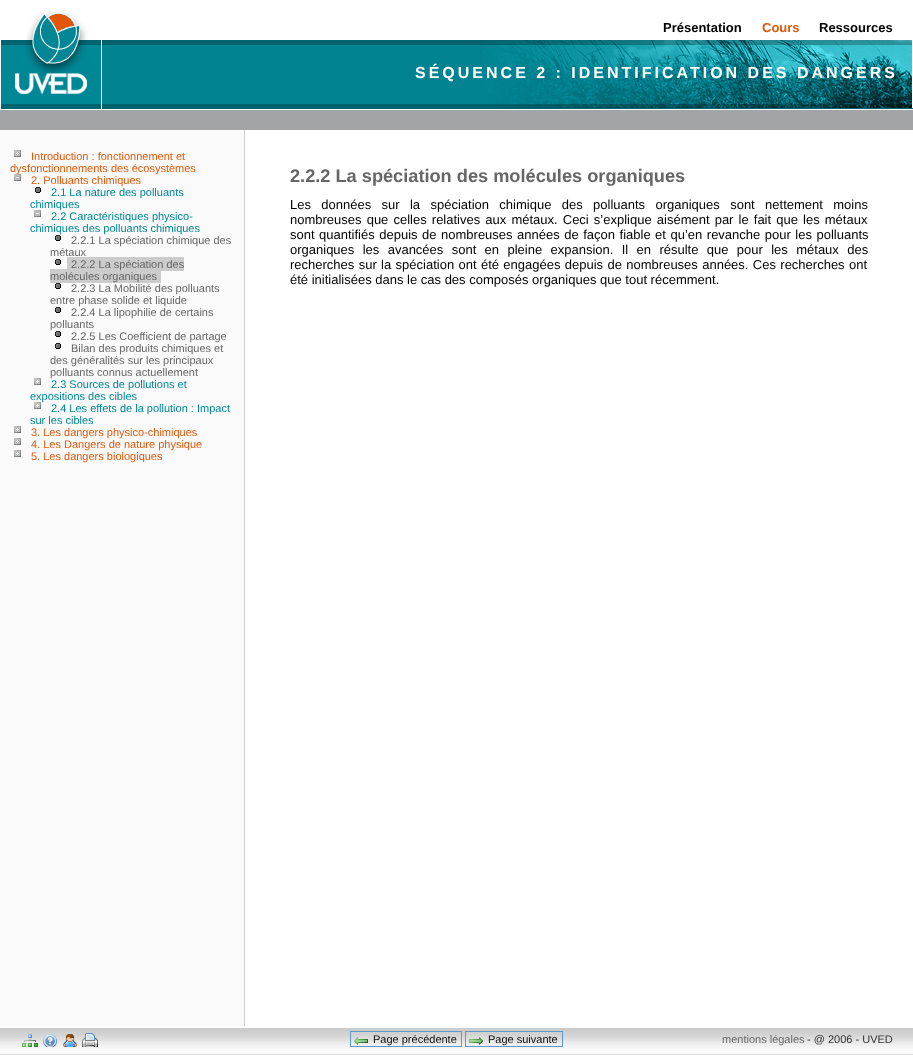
(async () => {
  const canvas = document.querySelector("canvas");
  canvas.width = 913;
  canvas.height = 1056;
  const ctx = canvas.getContext("2d");
  ctx.miterLimit = 4;
  ctx.fontKerning = "normal";
  async function loadImage(src) {
    const img = new Image();
    img.src = src;
    await img.decode();
    return img;
  }

  ctx.fillStyle = "#ffffff";
  ctx.fillRect(0, 0, 913, 1056);
  ctx.drawImage(await loadImage("img/1.png"), 102, 40, 811, 69);
  ctx.drawImage(await loadImage("img/2.png"), 0, 11, 102, 98);
  ctx.drawImage(await loadImage("img/3.png"), 483, 40, 430, 68);
  for (const [x, y, w, h, color] of [
    [0, 110, 913, 20, "#a2a4a6"],
    [0, 130, 244, 896, "#fafafa"],
    [244, 130, 1, 896, "#cccccc"],
  ]) {
    ctx.fillStyle = color;
    ctx.fillRect(x, y, w, h);
  }
  ctx.drawImage(await loadImage("img/4.png"), 14, 150, 7, 7);
  ctx.drawImage(await loadImage("img/6.png"), 35, 187, 6, 6);
  ctx.drawImage(await loadImage("img/6.png"), 55, 235, 6, 6);
  ctx.drawImage(await loadImage("img/6.png"), 55, 259, 6, 6);
  ctx.fillRect(67, 257, 117, 14);
  ctx.fillRect(50, 269, 111, 14);
  ctx.drawImage(await loadImage("img/6.png"), 55, 283, 6, 6);
  ctx.drawImage(await loadImage("img/6.png"), 55, 307, 6, 6);
  ctx.drawImage(await loadImage("img/6.png"), 55, 331, 6, 6);
  ctx.drawImage(await loadImage("img/6.png"), 55, 343, 6, 6);
  ctx.drawImage(await loadImage("img/4.png"), 34, 378, 7, 7);
  ctx.drawImage(await loadImage("img/4.png"), 14, 426, 7, 7);
  ctx.drawImage(await loadImage("img/4.png"), 14, 438, 7, 7);
  ctx.drawImage(await loadImage("img/4.png"), 14, 450, 7, 7);
  ctx.fillStyle = "#fbfbfb";
  ctx.fillRect(0, 1027, 913, 1);
  ctx.drawImage(await loadImage("img/7.png"), 0, 1028, 913, 27);
  ctx.drawImage(await loadImage("img/8.png"), 22, 1034, 16, 13);
  ctx.drawImage(await loadImage("img/9.png"), 43, 1034, 14, 13);
  ctx.drawImage(await loadImage("img/10.png"), 63, 1034, 14, 13);
  ctx.drawImage(await loadImage("img/11.png"), 82, 1033, 16, 14);
  ctx.drawImage(await loadImage("img/12.png"), 354, 1037, 14, 8);
  ctx.strokeStyle = "#5e97cb";
  ctx.strokeRect(350.5, 1031.5, 111, 15);
  ctx.drawImage(await loadImage("img/13.png"), 469, 1037, 14, 8);
  ctx.strokeRect(465.5, 1031.5, 97, 15);
  ctx.font = "bold 13px Liberation Sans";
  ctx.fillStyle = "#000000";
  ctx.fillText("Présentation", 663, 32);
  ctx.fillStyle = "#e0580a";
  ctx.fillText("Cours", 762, 32);
  ctx.fillStyle = "#000000";
  ctx.fillText("Ressources", 819, 32);
  ctx.letterSpacing = "3px";
  ctx.font = "bold 16px Liberation Sans";
  ctx.fillStyle = "#ffffff";
  ctx.fillText("SÉQUENCE 2 : IDENTIFICATION DES DANGERS", 415, 78);
  ctx.letterSpacing = "0px";
  ctx.font = "11px Liberation Sans";
  ctx.fillStyle = "#e0580a";
  ctx.fillText("Introduction : fonctionnement et", 31, 160);
  ctx.fillText("dysfonctionnements des écosystèmes", 10, 172);
  ctx.drawImage(await loadImage("img/5.png"), 14, 174, 7, 7);
  ctx.fillText("2. Polluants chimiques", 31, 184);
  ctx.fillStyle = "#008796";
  ctx.fillText("2.1 La nature des polluants", 51, 196);
  ctx.fillText("chimiques", 30, 208);
  ctx.drawImage(await loadImage("img/5.png"), 34, 210, 7, 7);
  ctx.fillText("2.2 Caractéristiques physico-", 51, 220);
  ctx.fillText("chimiques des polluants chimiques", 30, 232);
  ctx.fillStyle = "#666666";
  for (const [text, x, y] of [
    ["2.2.1 La spéciation chimique des", 71, 244],
    ["métaux", 50, 256],
    ["2.2.2 La spéciation des", 71, 268],
    ["molécules organiques", 50, 280],
    ["2.2.3 La Mobilité des polluants", 71, 292],
    ["entre phase solide et liquide", 50, 304],
    ["2.2.4 La lipophilie de certains", 71, 316],
    ["polluants", 50, 328],
    ["2.2.5 Les Coefficient de partage", 71, 340],
    ["Bilan des produits chimiques et", 71, 352],
    ["des généralités sur les principaux", 50, 364],
    ["polluants connus actuellement", 50, 376],
  ]) {
    ctx.fillText(text, x, y);
  }
  ctx.fillStyle = "#008796";
  ctx.fillText("2.3 Sources de pollutions et", 51, 388);
  ctx.fillText("expositions des cibles", 30, 400);
  ctx.drawImage(await loadImage("img/4.png"), 34, 402, 7, 7);
  ctx.fillText("2.4 Les effets de la pollution : Impact", 51, 412);
  ctx.fillText("sur les cibles", 30, 424);
  ctx.fillStyle = "#e0580a";
  for (const [text, x, y] of [
    ["3. Les dangers physico-chimiques", 31, 436],
    ["4. Les Dangers de nature physique", 31, 448],
    ["5. Les dangers biologiques", 31, 460],
  ]) {
    ctx.fillText(text, x, y);
  }
  ctx.font = "bold 18.2px Liberation Sans";
  ctx.fillStyle = "#666666";
  ctx.fillText("2.2.2 La spéciation des molécules organiques", 290, 182);
  ctx.wordSpacing = "6.75px";
  ctx.font = "13px Liberation Sans";
  ctx.fillStyle = "#000000";
  ctx.fillText("Les données sur la spéciation chimique des polluants organiques sont nettement moins", 290, 209);
  ctx.wordSpacing = "1.5px";
  ctx.fillText("nombreuses que celles relatives aux métaux. Ceci s’explique aisément par le fait que les métaux", 290, 224);
  ctx.wordSpacing = "0.9px";
  ctx.fillText("sont quantifiés depuis de nombreuses années de façon fiable et qu’en revanche pour les polluants", 290, 239);
  ctx.wordSpacing = "4.75px";
  ctx.fillText("organiques les avancées sont en pleine expansion. Il en résulte que pour les métaux des", 290, 254);
  ctx.wordSpacing = "0.75px";
  ctx.fillText("recherches sur la spéciation ont été engagées depuis de nombreuses années. Ces recherches ont", 290, 269);
  ctx.wordSpacing = "0px";
  ctx.fillText("été initialisées dans le cas des composés organiques que tout récemment.", 290, 284);
  ctx.font = "11px Liberation Sans";
  ctx.fillStyle = "#0d0d0d";
  ctx.fillText("Page précédente", 373, 1043);
  ctx.fillText("Page suivante", 488, 1043);
  ctx.fillStyle = "#666666";
  ctx.fillText("mentions légales", 722, 1043);
  ctx.fillStyle = "#333333";
  ctx.fillText("- @ 2006 - UVED", 807, 1043);
})();
